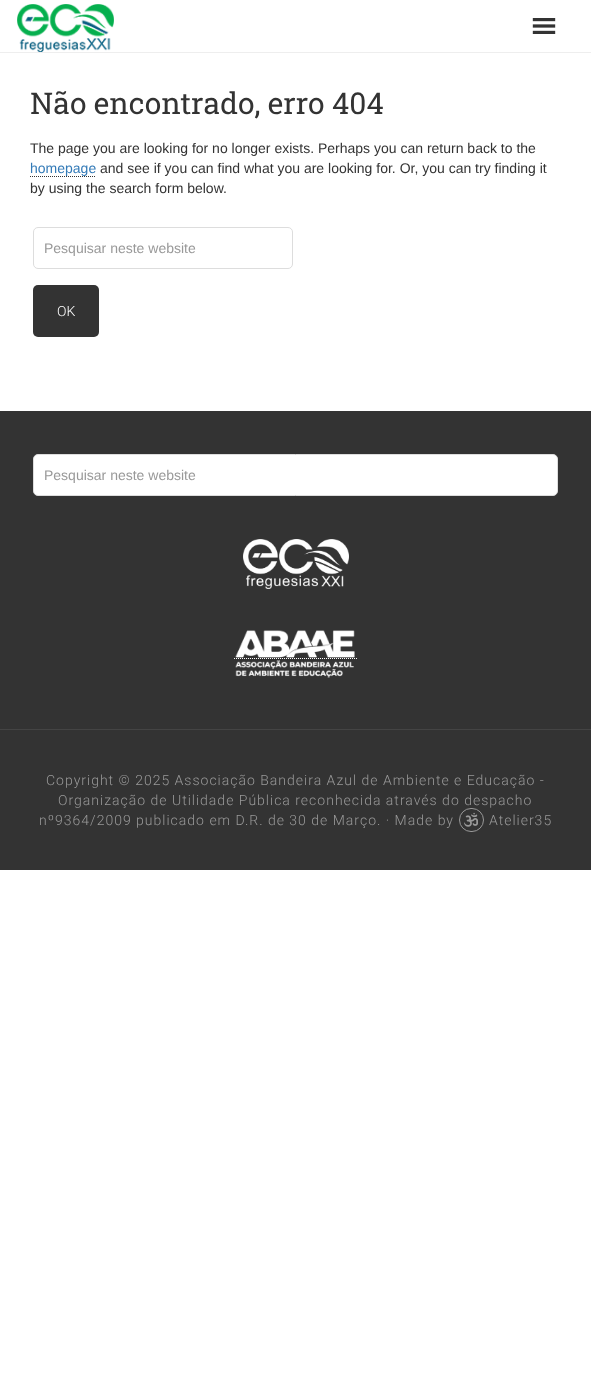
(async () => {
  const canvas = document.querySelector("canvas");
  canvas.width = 591;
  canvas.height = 1373;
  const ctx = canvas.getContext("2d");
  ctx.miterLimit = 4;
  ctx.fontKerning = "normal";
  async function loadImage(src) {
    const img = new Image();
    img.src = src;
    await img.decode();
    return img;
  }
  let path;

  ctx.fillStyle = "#ffffff";
  ctx.fillRect(0, 0, 591, 1373);
  ctx.fillStyle = "#eeeeee";
  ctx.fillRect(0, 52, 591, 1);
  ctx.drawImage(await loadImage("img/1.png"), 17, 4, 97, 48);
  ctx.drawImage(await loadImage("img/2.png"), 532, 18, 24, 16);
  path = new Path2D("M30 176.5H96");
  ctx.strokeStyle = "#333333";
  ctx.setLineDash([1, 1]);
  ctx.stroke(path);
  ctx.beginPath();
  ctx.roundRect(33.5, 227.5, 259, 41, 4.5);
  ctx.strokeStyle = "#dddddd";
  ctx.setLineDash([]);
  ctx.stroke();
  ctx.fillStyle = "#333333";
  ctx.beginPath();
  ctx.roundRect(33, 285, 66, 52, 5);
  ctx.fill();
  ctx.fillRect(0, 411, 591, 318);
  ctx.fillStyle = "#444444";
  ctx.fillRect(0, 729, 591, 1);
  ctx.fillStyle = "#ffffff";
  ctx.beginPath();
  ctx.roundRect(33.5, 454.5, 524, 41, 4.5);
  ctx.fill();
  ctx.stroke();
  ctx.drawImage(await loadImage("img/3.png"), 243, 539, 106, 50);
  path = new Path2D("M234 658.5H357");
  ctx.strokeStyle = "#ffffff";
  ctx.setLineDash([1, 1]);
  ctx.stroke(path);
  ctx.drawImage(await loadImage("img/4.png"), 235, 630, 120, 48);
  ctx.fillStyle = "#333333";
  ctx.fillRect(0, 730, 591, 140);
  ctx.beginPath();
  ctx.roundRect(459.5, 808.5, 24, 23, 11.5);
  ctx.strokeStyle = "#999999";
  ctx.setLineDash([]);
  ctx.stroke();
  ctx.drawImage(await loadImage("img/5.png"), 464, 812, 14, 15);
  ctx.font = "30px Roboto Slab";
  ctx.fillText("Não encontrado, erro 404", 30, 114);
  ctx.font = "14px Liberation Sans";
  ctx.fillText("The page you are looking for no longer exists. Perhaps you can return back to the", 30, 153);
  ctx.fillStyle = "#337ab7";
  ctx.fillText("homepage", 30, 173);
  ctx.fillStyle = "#333333";
  ctx.fillText("and see if you can find what you are looking for. Or, you can try finding it", 100, 173);
  ctx.fillText("by using the search form below.", 30, 193);
  ctx.fillStyle = "#999999";
  ctx.fillText("Pesquisar neste website", 44, 253);
  ctx.font = "300 14px Roboto";
  ctx.fillStyle = "#ffffff";
  ctx.fillText("OK", 57, 316);
  ctx.font = "14px Liberation Sans";
  ctx.fillStyle = "#999999";
  ctx.fillText("Pesquisar neste website", 44, 480);
  ctx.letterSpacing = "1px";
  ctx.font = "300 14px Roboto";
  for (const [text, x, y] of [
    ["Copyright © 2025 Associação Bandeira Azul de Ambiente e Educação -", 46, 785],
    ["Organização de Utilidade Pública reconhecida através do despacho", 58, 805],
    ["nº9364/2009 publicado em D.R. de 30 de Março. · Made by", 39, 825],
    ["Atelier35", 489, 825],
  ]) {
    ctx.fillText(text, x, y);
  }
})();
